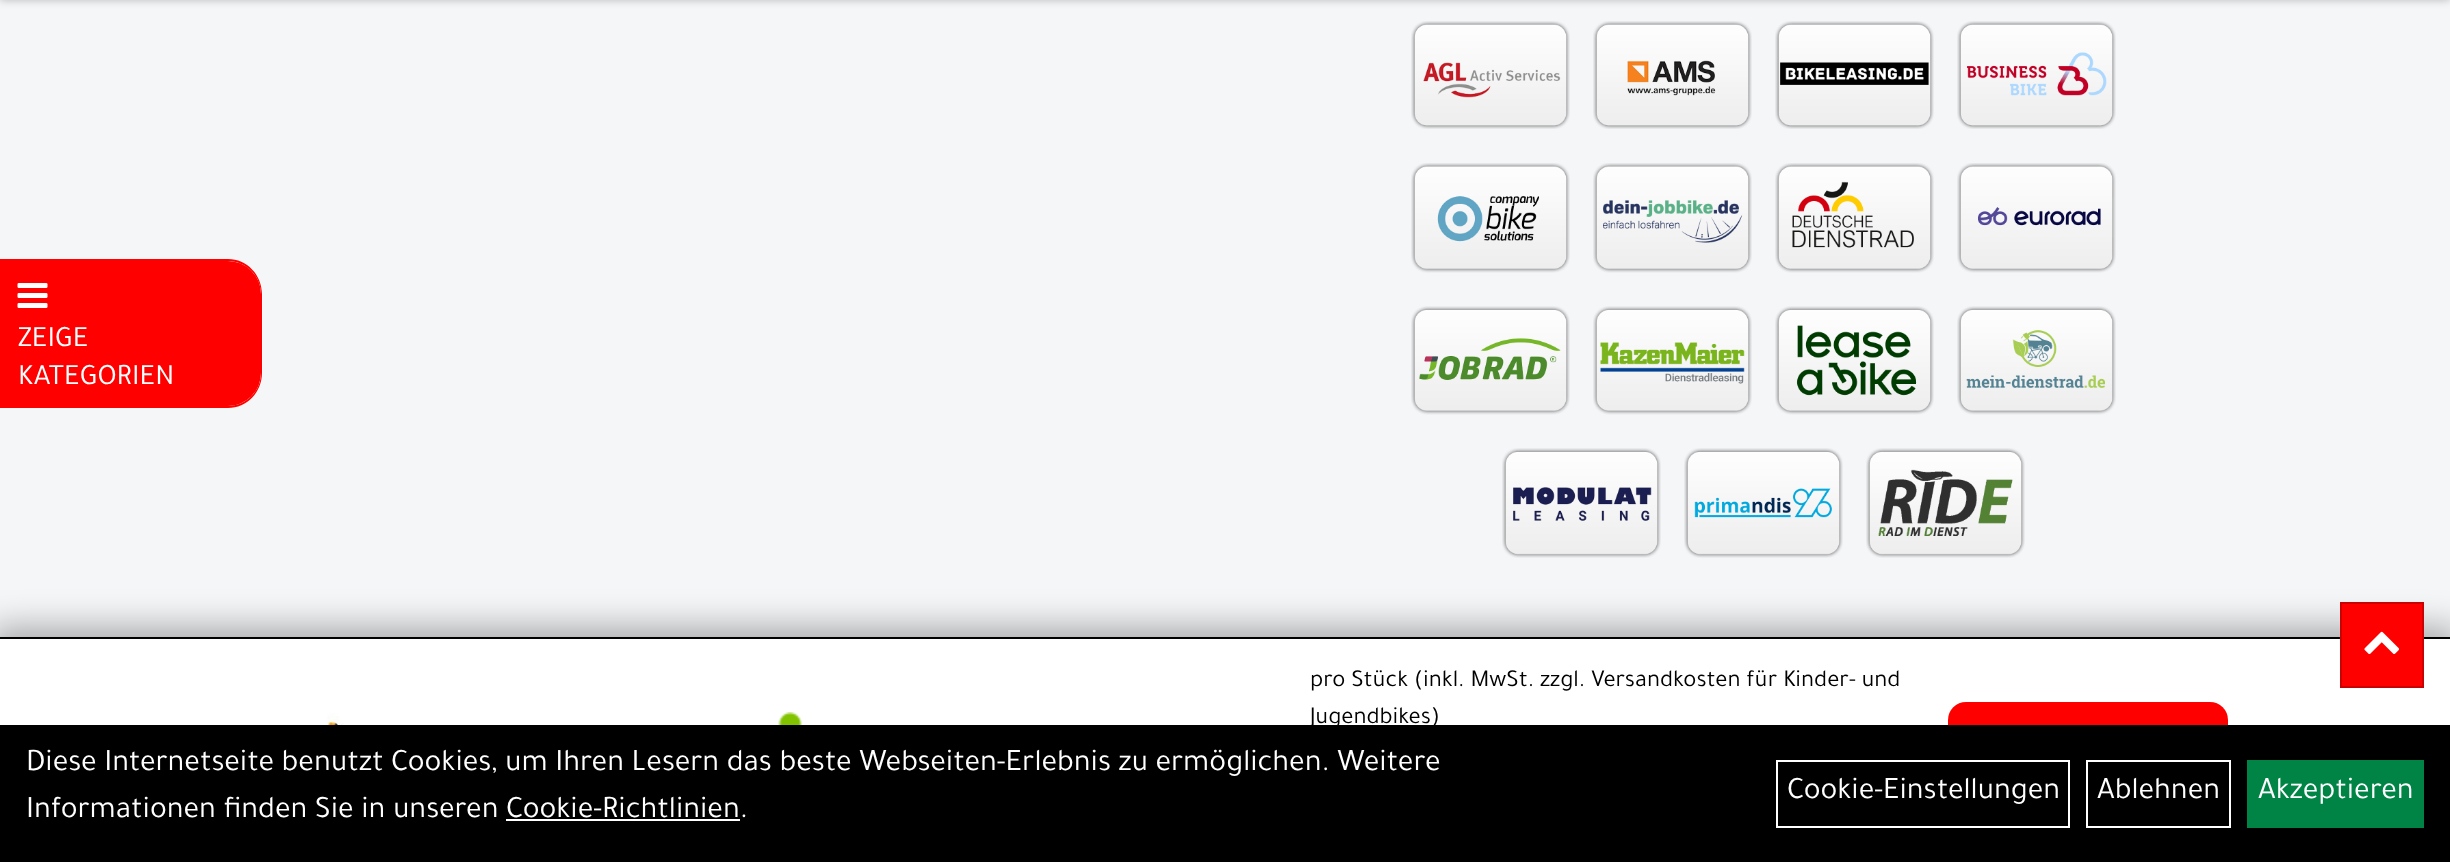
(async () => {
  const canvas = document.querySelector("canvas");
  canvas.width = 2450;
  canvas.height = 862;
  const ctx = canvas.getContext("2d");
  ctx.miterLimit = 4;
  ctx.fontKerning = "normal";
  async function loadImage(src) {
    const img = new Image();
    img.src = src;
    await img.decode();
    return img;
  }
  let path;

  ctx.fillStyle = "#f5f6f8";
  ctx.fillRect(0, 0, 2450, 862);
  ctx.fillStyle = "rgba(0, 0, 0, 0.25)";
  ctx.filter = "blur(4.5px)";
  ctx.beginPath();
  ctx.rect(0, -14, 2450, 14);
  ctx.fill();
  ctx.filter = "none";
  ctx.drawImage(await loadImage("img/1.png"), 1411, 21, 159, 108);
  ctx.drawImage(await loadImage("img/2.png"), 1593, 21, 159, 108);
  ctx.drawImage(await loadImage("img/3.png"), 1775, 21, 159, 108);
  ctx.drawImage(await loadImage("img/4.png"), 1957, 21, 159, 108);
  ctx.drawImage(await loadImage("img/5.png"), 1411, 163, 159, 110);
  ctx.drawImage(await loadImage("img/6.png"), 1593, 163, 159, 110);
  ctx.drawImage(await loadImage("img/7.png"), 1775, 163, 159, 110);
  ctx.drawImage(await loadImage("img/8.png"), 1957, 163, 159, 110);
  ctx.drawImage(await loadImage("img/9.png"), 1411, 306, 159, 109);
  ctx.drawImage(await loadImage("img/10.png"), 1593, 306, 159, 109);
  ctx.drawImage(await loadImage("img/11.png"), 1775, 306, 159, 109);
  ctx.drawImage(await loadImage("img/12.png"), 1957, 306, 159, 109);
  ctx.drawImage(await loadImage("img/13.png"), 1502, 448, 159, 110);
  ctx.drawImage(await loadImage("img/14.png"), 1684, 448, 159, 110);
  ctx.drawImage(await loadImage("img/15.png"), 1866, 448, 159, 110);
  ctx.fillStyle = "#ffffff";
  ctx.beginPath();
  ctx.roundRect(0, 259, 263, 149, [0, 35, 35, 0]);
  ctx.fill();
  ctx.fillStyle = "#ff0000";
  path = new Path2D("M0 259H228C247 259 262 275 262 294V373C262 392 247 408 228 408H0ZM0 261H228C246 261 261 276 261 294V373C261 391 246 406 228 406H0Z");
  ctx.fill(path, "evenodd");
  ctx.beginPath();
  ctx.roundRect(0, 261, 261, 145, [0, 33, 33, 0]);
  ctx.fill();
  ctx.drawImage(await loadImage("img/16.png"), 17, 283, 31, 25);
  ctx.fillStyle = "rgba(0, 0, 0, 0.33)";
  ctx.filter = "blur(17.5px)";
  ctx.beginPath();
  ctx.rect(-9, 628, 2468, 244);
  ctx.fill();
  ctx.filter = "none";
  ctx.fillStyle = "#ffffff";
  ctx.fillRect(0, 639, 2450, 86);
  ctx.fillStyle = "#000000";
  ctx.fillRect(0, 637, 2450, 2);
  ctx.drawImage(await loadImage("img/17.png"), 241, 713, 136, 12);
  ctx.drawImage(await loadImage("img/18.png"), 778, 712, 24, 13);
  ctx.fillStyle = "#ff0000";
  ctx.beginPath();
  ctx.roundRect(1948, 702, 280, 115, 18);
  ctx.fill();
  ctx.fillStyle = "#000000";
  ctx.fillRect(0, 725, 2450, 137);
  ctx.fillStyle = "#ffffff";
  ctx.fillRect(506, 819, 234, 2);
  ctx.strokeStyle = "#ffffff";
  ctx.lineWidth = 2;
  ctx.strokeRect(1777, 761, 292, 66);
  ctx.strokeRect(2087, 761, 143, 66);
  ctx.fillStyle = "#008446";
  ctx.fillRect(2247, 760, 177, 68);
  ctx.fillStyle = "#ff0000";
  ctx.beginPath();
  ctx.rect(2341, 603, 82, 84);
  ctx.fill();
  ctx.strokeStyle = "#cc0000";
  ctx.stroke();
  ctx.drawImage(await loadImage("img/19.png"), 2364, 631, 35, 23);
  ctx.font = "29.75px Tajawal";
  ctx.fillStyle = "#ffffff";
  ctx.fillText("ZEIGE", 18, 346);
  ctx.fillText("KATEGORIEN", 18, 384);
  ctx.font = "24.5px Tajawal";
  ctx.fillStyle = "#000000";
  ctx.fillText("pro Stück (inkl. MwSt. zzgl. Versandkosten für Kinder- und", 1310, 686);
  ctx.fillText("Jugendbikes)", 1310, 723);
  ctx.font = "31.5px Tajawal";
  ctx.fillStyle = "#ffffff";
  for (const [text, x, y] of [
    ["Diese Internetseite benutzt Cookies, um Ihren Lesern das beste Webseiten-Erlebnis zu ermöglichen. Weitere", 26, 770],
    ["Informationen finden Sie in unseren Cookie-Richtlinien.", 26, 817],
    ["Cookie-Einstellungen", 1787, 798],
    ["Ablehnen", 2097, 798],
    ["Akzeptieren", 2258, 798],
  ]) {
    ctx.fillText(text, x, y);
  }
})();
